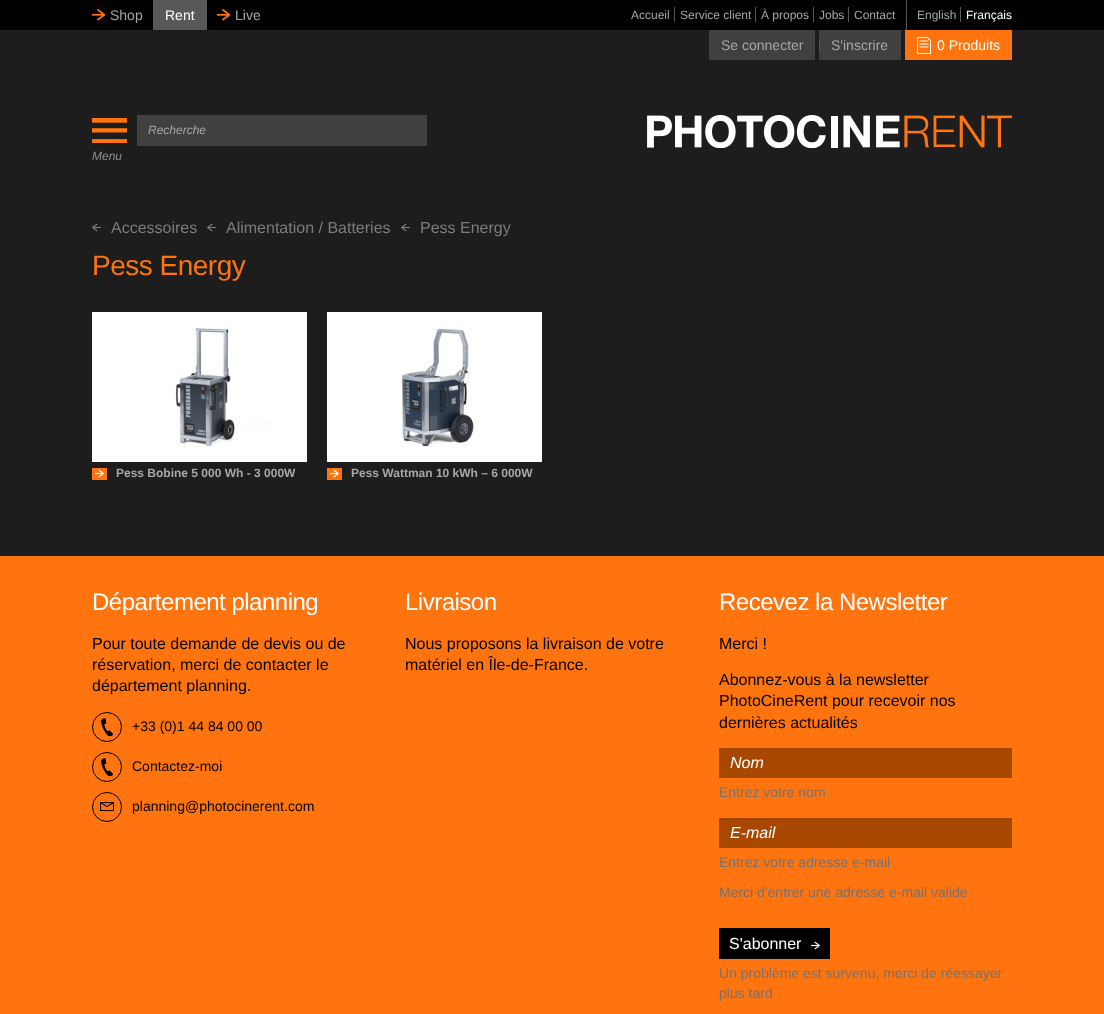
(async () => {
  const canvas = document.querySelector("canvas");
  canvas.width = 1104;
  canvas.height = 1014;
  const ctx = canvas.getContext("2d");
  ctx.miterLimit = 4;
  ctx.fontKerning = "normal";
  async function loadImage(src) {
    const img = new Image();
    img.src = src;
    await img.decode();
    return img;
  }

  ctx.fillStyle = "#1d1d1d";
  ctx.fillRect(0, 0, 1104, 1014);
  ctx.fillStyle = "#000000";
  ctx.fillRect(0, 0, 1104, 30);
  ctx.drawImage(await loadImage("img/1.png"), 92, 9, 14, 12);
  ctx.fillStyle = "#585858";
  ctx.fillRect(153, 0, 54, 30);
  ctx.drawImage(await loadImage("img/1.png"), 217, 9, 14, 12);
  for (const [x, y, w, h, color] of [
    [906, 0, 1, 30, "#585858"],
    [674, 7, 1, 15, "#585858"],
    [755, 7, 1, 15, "#585858"],
    [813, 7, 1, 15, "#585858"],
    [848, 7, 1, 15, "#585858"],
    [960, 7, 1, 15, "#585858"],
    [709, 30, 106, 30, "#42403f"],
    [819, 30, 82, 30, "#42403f"],
    [819, 40, 1, 11, "#585858"],
    [905, 30, 107, 30, "#ff740e"],
  ]) {
    ctx.fillStyle = color;
    ctx.fillRect(x, y, w, h);
  }
  ctx.drawImage(await loadImage("img/2.png"), 917, 37, 14, 17);
  ctx.drawImage(await loadImage("img/3.png"), 92, 118, 35, 25);
  ctx.fillStyle = "#42403f";
  ctx.fillRect(137, 115, 290, 31);
  ctx.drawImage(await loadImage("img/4.png"), 647, 115, 365, 33);
  ctx.drawImage(await loadImage("img/5.png"), 92, 223, 9, 9);
  ctx.drawImage(await loadImage("img/5.png"), 207, 223, 9, 9);
  ctx.drawImage(await loadImage("img/5.png"), 401, 223, 9, 9);
  ctx.fillStyle = "#ffffff";
  ctx.fillRect(92, 312, 215, 150);
  ctx.drawImage(await loadImage("img/6.png"), 175, 326, 97, 121);
  ctx.fillStyle = "#ff740e";
  ctx.fillRect(92, 468, 15, 12);
  ctx.drawImage(await loadImage("img/7.png"), 95, 469, 9, 9);
  ctx.fillStyle = "#ffffff";
  ctx.fillRect(327, 312, 215, 150);
  ctx.drawImage(await loadImage("img/8.png"), 400, 325, 76, 122);
  ctx.fillStyle = "#ff740e";
  ctx.fillRect(327, 468, 15, 12);
  ctx.drawImage(await loadImage("img/7.png"), 330, 469, 9, 9);
  ctx.fillRect(0, 556, 1104, 458);
  ctx.beginPath();
  ctx.arc(107, 727, 14.5, 0, Math.PI * 2);
  ctx.strokeStyle = "#000000";
  ctx.stroke();
  ctx.drawImage(await loadImage("img/9.png"), 101, 718, 12, 19);
  ctx.beginPath();
  ctx.arc(107, 767, 14.5, 0, Math.PI * 2);
  ctx.stroke();
  ctx.drawImage(await loadImage("img/9.png"), 101, 758, 12, 19);
  ctx.beginPath();
  ctx.arc(107, 807, 14.5, 0, Math.PI * 2);
  ctx.stroke();
  ctx.drawImage(await loadImage("img/10.png"), 100, 802, 14, 10);
  for (const [x, y, w, h, color] of [
    [719, 748, 293, 30, "#a74700"],
    [720, 749, 291, 1, "#9a4200"],
    [719, 818, 293, 30, "#a74700"],
    [720, 819, 291, 1, "#9a4200"],
    [719, 928, 111, 31, "#000000"],
  ]) {
    ctx.fillStyle = color;
    ctx.fillRect(x, y, w, h);
  }
  ctx.drawImage(await loadImage("img/11.png"), 811, 941, 9, 9);
  ctx.font = "14px Liberation Sans";
  ctx.fillStyle = "#a6a7a6";
  ctx.fillText("Shop", 110, 20);
  ctx.fillStyle = "#ffffff";
  ctx.fillText("Rent", 165, 20);
  ctx.fillStyle = "#a6a7a6";
  ctx.fillText("Live", 235, 20);
  ctx.font = "12px Liberation Sans";
  for (const [text, x, y] of [
    ["Accueil", 631, 19],
    ["Service client", 680, 19],
    ["À propos", 761, 19],
    ["Jobs", 819, 19],
    ["Contact", 854, 19],
    ["English", 917, 19],
  ]) {
    ctx.fillText(text, x, y);
  }
  ctx.fillStyle = "#ffffff";
  ctx.fillText("Français", 966, 19);
  ctx.font = "14px Liberation Sans";
  ctx.fillStyle = "#a6a7a6";
  ctx.fillText("Se connecter", 721, 50);
  ctx.fillText("S'inscrire", 831, 50);
  ctx.fillStyle = "#ffffff";
  ctx.fillText("0 Produits", 937, 50);
  ctx.font = "italic 12px Liberation Sans";
  ctx.fillStyle = "#a6a7a6";
  ctx.fillText("Recherche", 148, 134);
  ctx.fillStyle = "#8e8e8e";
  ctx.fillText("Menu", 92, 160);
  ctx.font = "16px Liberation Sans";
  ctx.fillStyle = "#7c7c7b";
  for (const [text, x, y] of [
    ["Accessoires", 111, 233],
    ["Alimentation / Batteries", 226, 233],
    ["Pess Energy", 420, 233],
  ]) {
    ctx.fillText(text, x, y);
  }
  ctx.letterSpacing = "-0.5px";
  ctx.font = "28px Liberation Sans";
  ctx.fillStyle = "#ff740e";
  ctx.fillText("Pess Energy", 92, 275);
  ctx.letterSpacing = "0px";
  ctx.font = "bold 12px Liberation Sans";
  ctx.fillStyle = "#a6a7a6";
  ctx.fillText("Pess Bobine 5 000 Wh - 3 000W", 116, 477);
  ctx.fillText("Pess Wattman 10 kWh – 6 000W", 351, 477);
  ctx.letterSpacing = "-0.5px";
  ctx.font = "24px Liberation Sans";
  ctx.fillStyle = "#ffffff";
  ctx.fillText("Département planning", 92, 610);
  ctx.letterSpacing = "0px";
  ctx.font = "16px Liberation Sans";
  ctx.fillStyle = "#000000";
  for (const [text, x, y] of [
    ["Pour toute demande de devis ou de", 92, 649],
    ["réservation, merci de contacter le", 92, 670],
    ["département planning.", 92, 691],
  ]) {
    ctx.fillText(text, x, y);
  }
  ctx.font = "14px Liberation Sans";
  for (const [text, x, y] of [
    ["+33 (0)1 44 84 00 00", 132, 731],
    ["Contactez-moi", 132, 771],
    ["planning@photocinerent.com", 132, 811],
  ]) {
    ctx.fillText(text, x, y);
  }
  ctx.letterSpacing = "-0.5px";
  ctx.font = "24px Liberation Sans";
  ctx.fillStyle = "#ffffff";
  ctx.fillText("Livraison", 405, 610);
  ctx.letterSpacing = "0px";
  ctx.font = "16px Liberation Sans";
  ctx.fillStyle = "#000000";
  ctx.fillText("Nous proposons la livraison de votre", 405, 649);
  ctx.fillText("matériel en Île-de-France.", 405, 670);
  ctx.letterSpacing = "-0.5px";
  ctx.font = "24px Liberation Sans";
  ctx.fillStyle = "#ffffff";
  ctx.fillText("Recevez la Newsletter", 719, 610);
  ctx.letterSpacing = "0px";
  ctx.font = "16px Liberation Sans";
  ctx.fillStyle = "#000000";
  for (const [text, x, y] of [
    ["Merci !", 719, 649],
    ["Abonnez-vous à la newsletter", 719, 685],
    ["PhotoCineRent pour recevoir nos", 719, 706],
    ["dernières actualités", 719, 728],
  ]) {
    ctx.fillText(text, x, y);
  }
  ctx.font = "italic 16px Liberation Sans";
  ctx.fillStyle = "#ffffff";
  ctx.fillText("Nom", 730, 768);
  ctx.font = "14px Liberation Sans";
  ctx.fillStyle = "#737373";
  ctx.fillText("Entrez votre nom", 719, 797);
  ctx.font = "italic 16px Liberation Sans";
  ctx.fillStyle = "#ffffff";
  ctx.fillText("E-mail", 730, 838);
  ctx.font = "14px Liberation Sans";
  ctx.fillStyle = "#737373";
  ctx.fillText("Entrez votre adresse e-mail", 719, 867);
  ctx.fillText("Merci d'entrer une adresse e-mail valide", 719, 897);
  ctx.font = "16px Liberation Sans";
  ctx.fillStyle = "#ffffff";
  ctx.fillText("S'abonner", 729, 949);
  ctx.font = "14px Liberation Sans";
  ctx.fillStyle = "#737373";
  ctx.fillText("Un problème est survenu, merci de réessayer", 719, 978);
  ctx.fillText("plus tard", 719, 998);
})();
